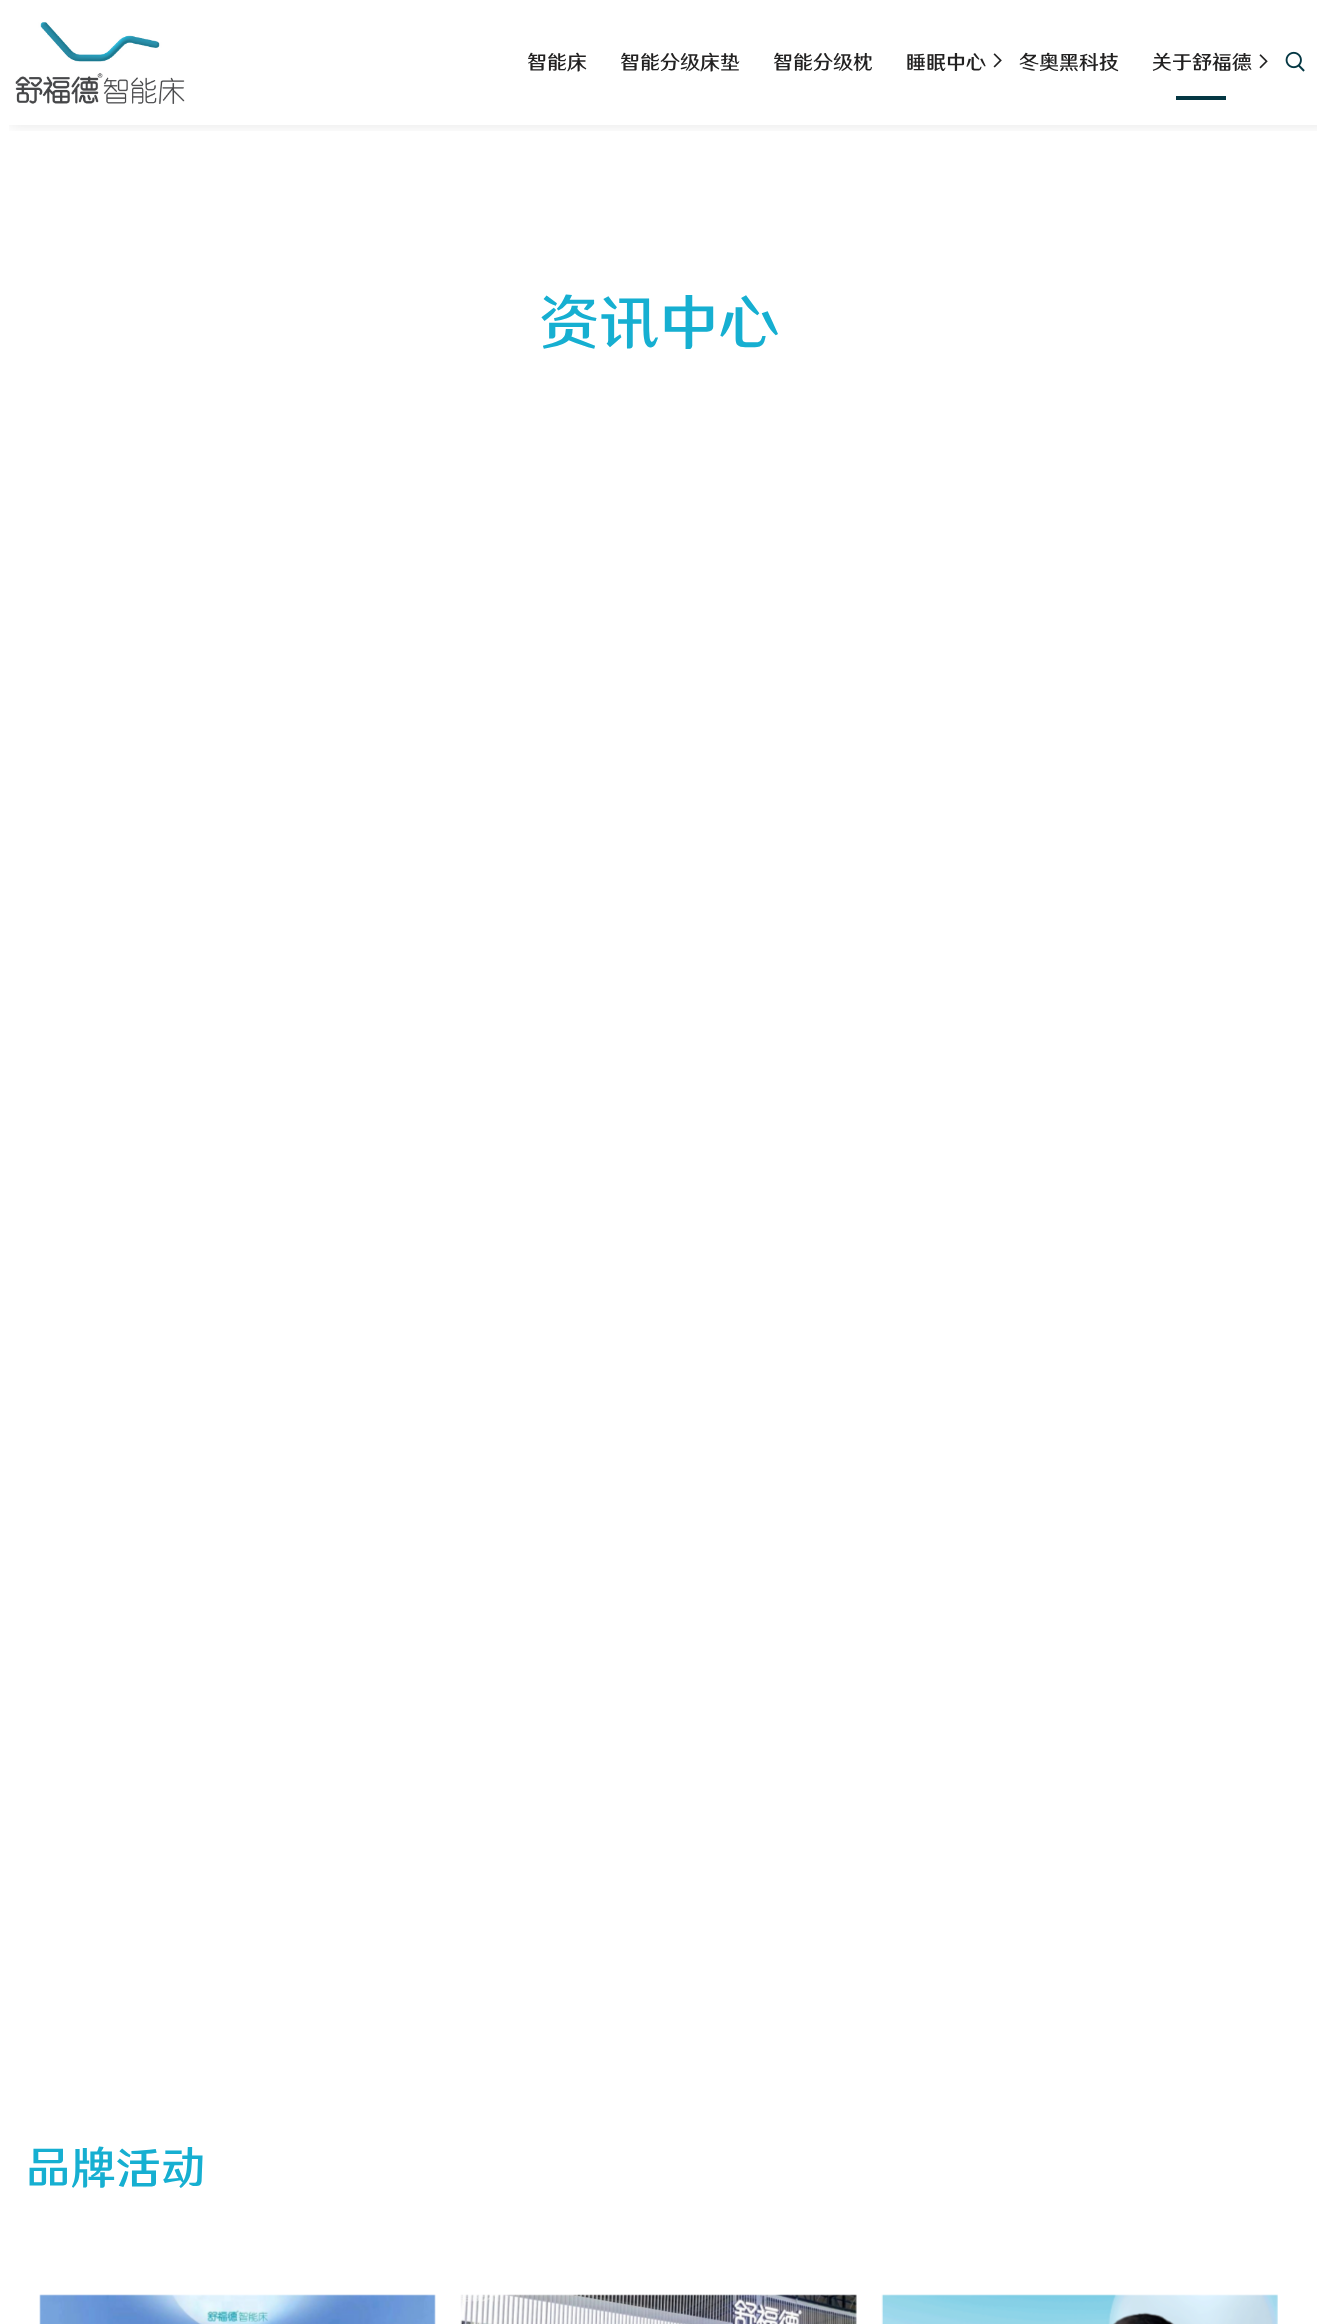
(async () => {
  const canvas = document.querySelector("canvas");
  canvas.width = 1317;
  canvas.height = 2324;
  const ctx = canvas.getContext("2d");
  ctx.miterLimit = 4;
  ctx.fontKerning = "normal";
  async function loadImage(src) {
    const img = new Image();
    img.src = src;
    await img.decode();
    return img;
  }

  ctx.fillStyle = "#ffffff";
  ctx.fillRect(0, 0, 1317, 2324);
  ctx.save();
  ctx.beginPath();
  ctx.rect(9, 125, 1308, 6);
  ctx.clip();
  ctx.fillStyle = "rgba(0, 0, 0, 0.1)";
  ctx.filter = "blur(7.5px)";
  ctx.beginPath();
  ctx.rect(10, 0, 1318, 125);
  ctx.fill();
  ctx.filter = "none";
  ctx.restore();
  ctx.drawImage(await loadImage("img/1.png"), 15, 22, 170, 82);
  ctx.drawImage(await loadImage("img/2.png"), 993, 53, 9, 15);
  ctx.drawImage(await loadImage("img/3.png"), 1259, 54, 9, 15);
  ctx.fillStyle = "#043743";
  ctx.fillRect(1176, 96, 50, 4);
  ctx.drawImage(await loadImage("img/4.png"), 1285, 51, 20, 21);
  ctx.drawImage(await loadImage("img/5.png"), 39, 2294, 397, 30);
  ctx.drawImage(await loadImage("img/6.png"), 460, 2294, 397, 30);
  ctx.drawImage(await loadImage("img/7.png"), 881, 2294, 397, 30);
  ctx.font = "20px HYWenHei";
  ctx.fillStyle = "#222121";
  for (const [text, x, y] of [
    ["智能床", 527, 69],
    ["智能分级床垫", 620, 69],
    ["智能分级枕", 773, 69],
    ["睡眠中心", 906, 69],
    ["冬奥黑科技", 1019, 69],
    ["关于舒福德", 1152, 69],
  ]) {
    ctx.fillText(text, x, y);
  }
  ctx.font = "60px HYWenHei";
  ctx.fillStyle = "#16afd1";
  ctx.fillText("资讯中心", 539, 343);
  ctx.font = "45px HYWenHei";
  ctx.fillText("品牌活动", 26, 2183);
})();
